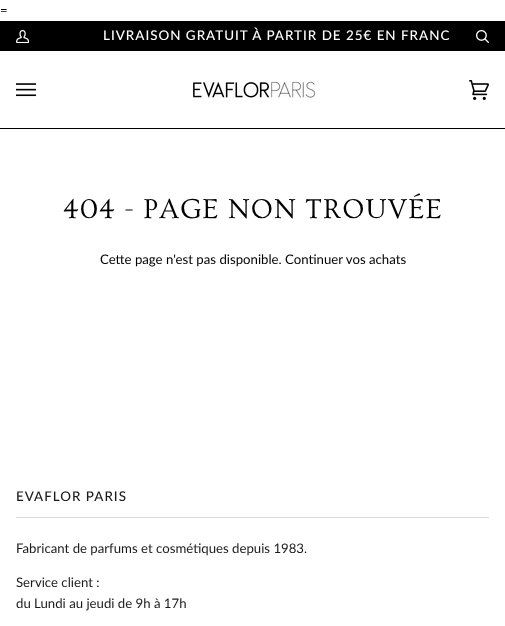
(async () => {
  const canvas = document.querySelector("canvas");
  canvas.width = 505;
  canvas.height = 626;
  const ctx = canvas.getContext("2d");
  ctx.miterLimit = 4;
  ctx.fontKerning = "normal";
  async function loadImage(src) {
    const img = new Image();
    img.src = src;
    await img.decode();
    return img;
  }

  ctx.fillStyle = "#ffffff";
  ctx.fillRect(0, 0, 505, 626);
  ctx.fillStyle = "#000000";
  ctx.fillRect(0, 21, 505, 30);
  ctx.drawImage(await loadImage("img/1.png"), 16, 30, 13, 13);
  ctx.drawImage(await loadImage("img/2.png"), 476, 30, 13, 13);
  ctx.fillRect(0, 128, 505, 1);
  ctx.drawImage(await loadImage("img/3.png"), 16, 83, 20, 14);
  ctx.drawImage(await loadImage("img/4.png"), 193, 79, 124, 19);
  ctx.drawImage(await loadImage("img/5.png"), 469, 80, 20, 20);
  ctx.fillStyle = "#d9d9d9";
  ctx.fillRect(16, 517, 473, 1);
  ctx.font = "13.2px Lato";
  ctx.fillStyle = "#000000";
  ctx.fillText("=", 0, 15);
  ctx.letterSpacing = "1px";
  ctx.font = "500 13.4px Lato";
  ctx.fillStyle = "#ffffff";
  ctx.fillText("LIVRAISON GRATUIT À PARTIR DE 25€ EN FRANC", 103, 40);
  ctx.font = "28.7px Ovo";
  ctx.fillStyle = "#000000";
  ctx.fillText("404 - PAGE NON TROUVÉE", 63, 218);
  ctx.letterSpacing = "0px";
  ctx.font = "13.2px Lato";
  ctx.fillText("Cette page n'est pas disponible. Continuer vos achats", 100, 264);
  ctx.letterSpacing = "1px";
  ctx.font = "500 13.4px Lato";
  ctx.fillStyle = "#1a1a1a";
  ctx.fillText("EVAFLOR PARIS", 16, 501);
  ctx.letterSpacing = "0px";
  ctx.font = "13.2px Lato";
  for (const [text, x, y] of [
    ["Fabricant de parfums et cosmétiques depuis 1983.", 16, 553],
    ["Service client :", 16, 587],
    ["du Lundi au jeudi de 9h à 17h", 16, 608],
  ]) {
    ctx.fillText(text, x, y);
  }
})();
